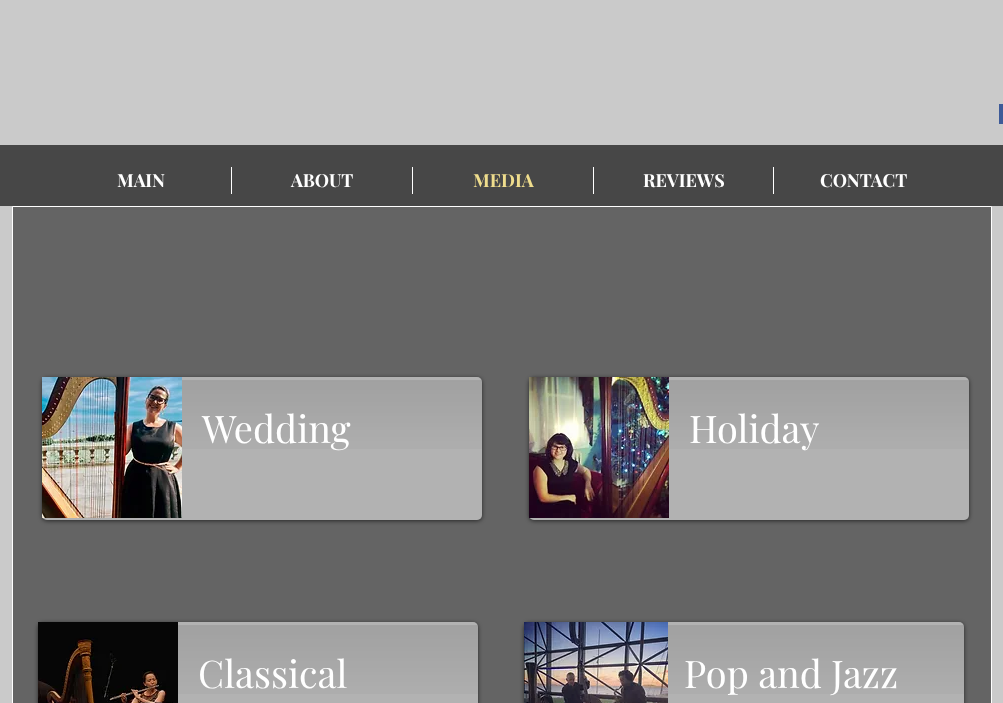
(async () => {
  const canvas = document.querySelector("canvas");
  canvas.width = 1003;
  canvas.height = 703;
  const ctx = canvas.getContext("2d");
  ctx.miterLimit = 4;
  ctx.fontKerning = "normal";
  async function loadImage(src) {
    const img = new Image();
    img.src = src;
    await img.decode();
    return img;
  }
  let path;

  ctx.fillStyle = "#cacaca";
  ctx.fillRect(0, 0, 1003, 703);
  for (const [x, y, w, h, color] of [
    [999, 104, 4, 20, "#3d5a98"],
    [0, 145, 1003, 61, "#474747"],
    [231, 167, 1, 27, "#ffffff"],
    [412, 167, 1, 27, "#ffffff"],
    [593, 167, 1, 27, "#ffffff"],
    [773, 167, 1, 27, "#ffffff"],
  ]) {
    ctx.fillStyle = color;
    ctx.fillRect(x, y, w, h);
  }
  ctx.fillStyle = "#646464";
  ctx.beginPath();
  ctx.rect(12.5, 206.5, 979, 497);
  ctx.fill();
  ctx.strokeStyle = "#ffffff";
  ctx.stroke();
  ctx.save();
  path = new Path2D("M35 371H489V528H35ZM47 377H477C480 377 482 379 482 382V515C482 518 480 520 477 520H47C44 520 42 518 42 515V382C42 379 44 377 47 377Z");
  ctx.clip(path, "evenodd");
  ctx.fillStyle = "rgba(0, 0, 0, 0.6)";
  ctx.filter = "blur(2px)";
  ctx.beginPath();
  ctx.roundRect(42, 378, 440, 143, 5);
  ctx.fill();
  ctx.filter = "none";
  ctx.restore();
  ctx.fillStyle = "rgba(255, 255, 255, 0.5)";
  ctx.beginPath();
  ctx.roundRect(42, 377, 440, 143, 5);
  ctx.fill();
  ctx.drawImage(await loadImage("img/1.png"), 182, 380, 300, 69);
  ctx.drawImage(await loadImage("img/2.png"), 42, 377, 140, 141);
  ctx.save();
  path = new Path2D("M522 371H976V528H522ZM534 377H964C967 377 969 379 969 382V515C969 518 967 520 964 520H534C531 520 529 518 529 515V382C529 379 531 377 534 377Z");
  ctx.clip(path, "evenodd");
  ctx.fillStyle = "rgba(0, 0, 0, 0.6)";
  ctx.filter = "blur(2px)";
  ctx.beginPath();
  ctx.roundRect(529, 378, 440, 143, 5);
  ctx.fill();
  ctx.filter = "none";
  ctx.restore();
  ctx.beginPath();
  ctx.roundRect(529, 377, 440, 143, 5);
  ctx.fill();
  ctx.drawImage(await loadImage("img/1.png"), 669, 380, 300, 69);
  ctx.drawImage(await loadImage("img/3.png"), 529, 377, 140, 141);
  ctx.save();
  path = new Path2D("M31 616H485V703H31ZM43 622H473C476 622 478 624 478 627V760C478 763 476 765 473 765H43C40 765 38 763 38 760V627C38 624 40 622 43 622Z");
  ctx.clip(path, "evenodd");
  ctx.fillStyle = "rgba(0, 0, 0, 0.6)";
  ctx.filter = "blur(2px)";
  ctx.beginPath();
  ctx.roundRect(38, 623, 440, 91, 5);
  ctx.fill();
  ctx.filter = "none";
  ctx.restore();
  ctx.beginPath();
  ctx.roundRect(38, 622, 440, 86, 5);
  ctx.fill();
  ctx.drawImage(await loadImage("img/1.png"), 178, 625, 300, 69);
  ctx.drawImage(await loadImage("img/4.png"), 38, 622, 140, 81);
  ctx.save();
  path = new Path2D("M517 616H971V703H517ZM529 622H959C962 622 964 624 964 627V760C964 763 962 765 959 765H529C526 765 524 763 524 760V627C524 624 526 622 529 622Z");
  ctx.clip(path, "evenodd");
  ctx.fillStyle = "rgba(0, 0, 0, 0.6)";
  ctx.filter = "blur(2px)";
  ctx.beginPath();
  ctx.roundRect(524, 623, 440, 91, 5);
  ctx.fill();
  ctx.filter = "none";
  ctx.restore();
  ctx.beginPath();
  ctx.roundRect(524, 622, 440, 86, 5);
  ctx.fill();
  ctx.drawImage(await loadImage("img/5.png"), 668, 625, 296, 69);
  ctx.drawImage(await loadImage("img/6.png"), 524, 622, 144, 81);
  ctx.font = "bold 18px Playfair Display";
  ctx.fillStyle = "#ffffff";
  ctx.fillText("MAIN", 117, 187);
  ctx.fillText("ABOUT", 291, 187);
  ctx.fillStyle = "#efdd8d";
  ctx.fillText("MEDIA", 473, 187);
  ctx.fillStyle = "#ffffff";
  ctx.fillText("REVIEWS", 643, 187);
  ctx.fillText("CONTACT", 820, 187);
  ctx.font = "38px Playfair Display";
  for (const [text, x, y] of [
    ["Wedding", 202, 443],
    ["Holiday", 689, 443],
    ["Classical", 198, 688],
    ["Pop and Jazz", 684, 688],
  ]) {
    ctx.fillText(text, x, y);
  }
})();
